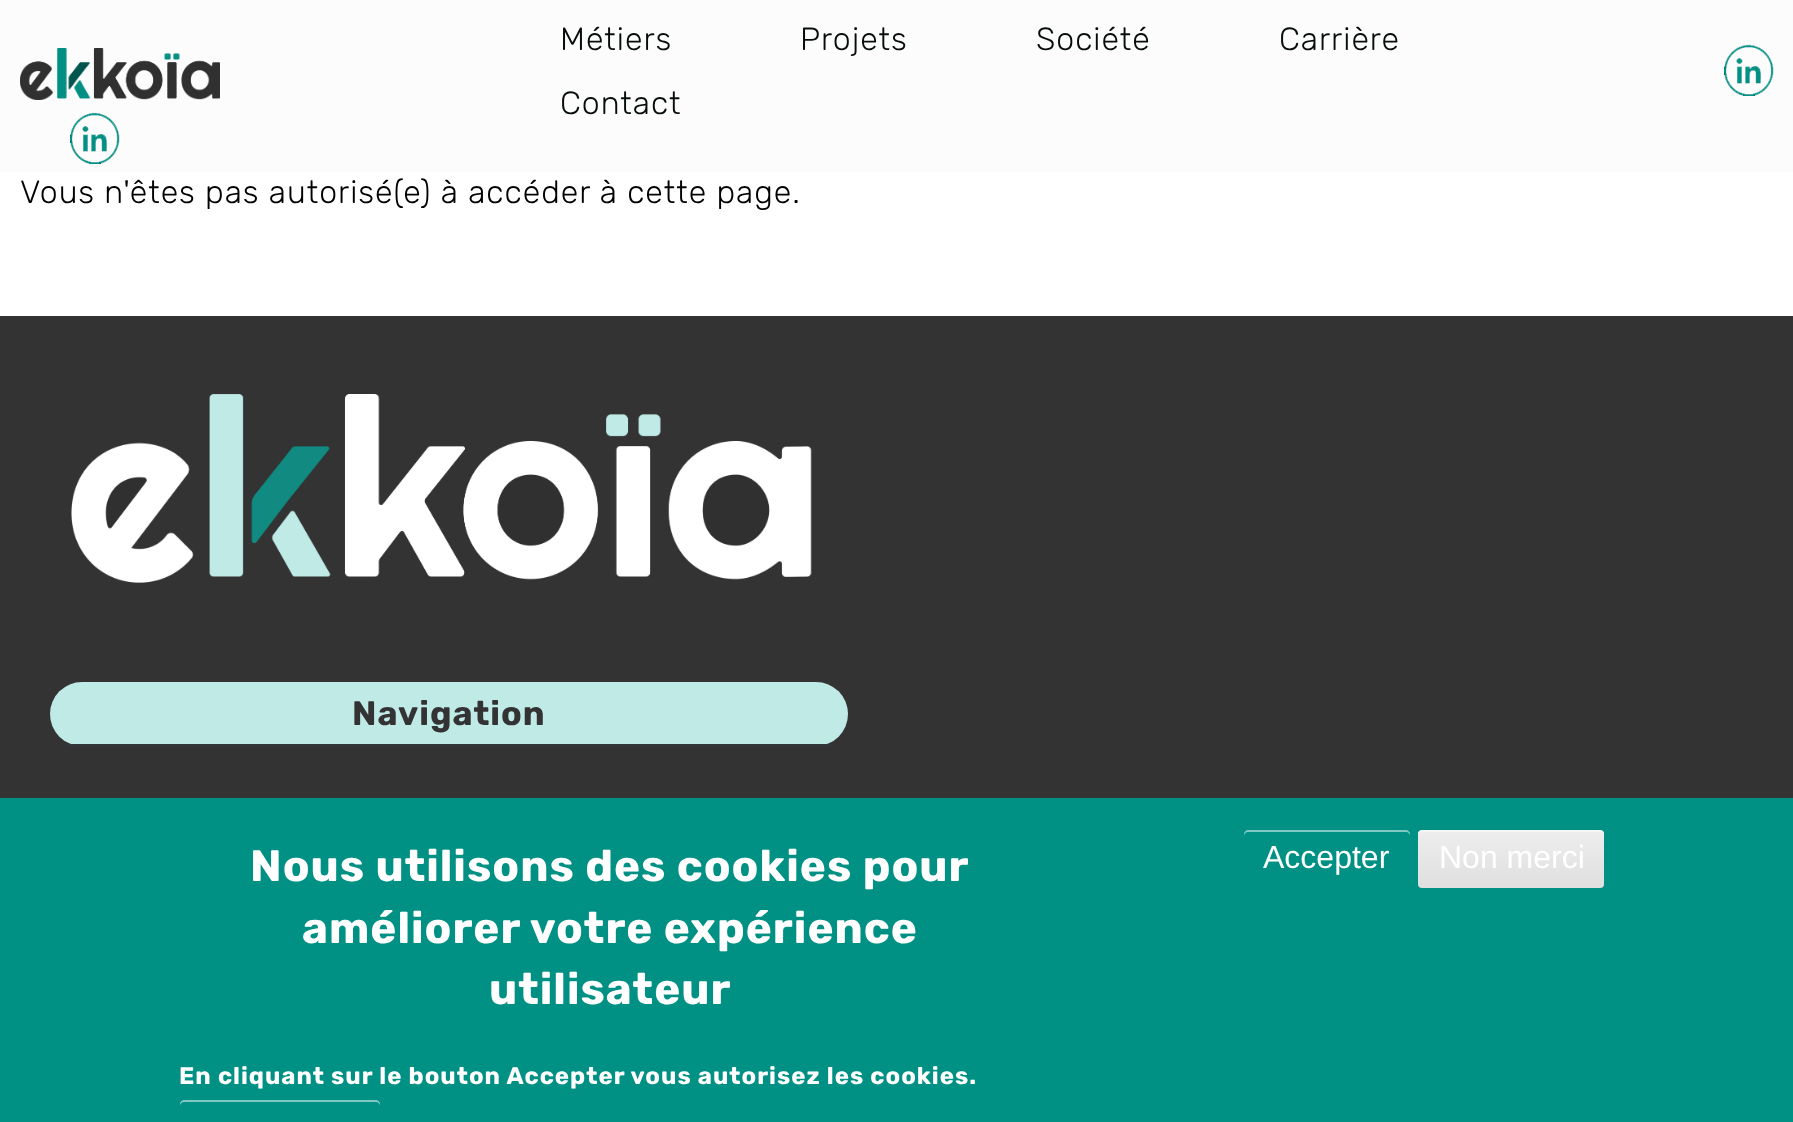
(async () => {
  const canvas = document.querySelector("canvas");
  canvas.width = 1793;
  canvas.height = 1122;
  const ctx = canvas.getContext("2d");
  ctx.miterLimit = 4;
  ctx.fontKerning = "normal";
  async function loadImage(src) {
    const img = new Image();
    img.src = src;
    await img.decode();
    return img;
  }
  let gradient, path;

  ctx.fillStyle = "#ffffff";
  ctx.fillRect(0, 0, 1793, 1122);
  ctx.fillStyle = "#fdfcfc";
  ctx.fillRect(0, 0, 1793, 172);
  ctx.drawImage(await loadImage("img/1.png"), 20, 48, 200, 52);
  ctx.drawImage(await loadImage("img/2.png"), 70, 112, 50, 52);
  ctx.drawImage(await loadImage("img/3.png"), 1724, 44, 50, 52);
  ctx.fillStyle = "#333333";
  ctx.fillRect(0, 316, 1793, 482);
  ctx.drawImage(await loadImage("img/4.png"), 71, 394, 741, 189);
  ctx.fillStyle = "#c0eae6";
  ctx.beginPath();
  ctx.roundRect(50, 682, 798, 64, 32);
  ctx.fill();
  ctx.fillStyle = "#31383a";
  ctx.fillRect(66, 744, 766, 2);
  ctx.fillStyle = "#009084";
  ctx.fillRect(0, 798, 1793, 324);
  ctx.fillStyle = "#80c8c2";
  path = new Path2D("M184 1102H376C378 1102 380 1104 380 1106V1104C380 1102 378 1100 376 1100H184C182 1100 180 1102 180 1104V1106C180 1104 182 1102 184 1102Z");
  ctx.fill(path);
  path = new Path2D("M1248 832H1406C1408 832 1410 834 1410 836V834C1410 832 1408 830 1406 830H1248C1246 830 1244 832 1244 834V836C1244 834 1246 832 1248 832Z");
  ctx.fill(path);
  gradient = ctx.createLinearGradient(1511, 830, 1511, 888);
  gradient.addColorStop(0.05, "#ededed");
  gradient.addColorStop(1, "#dfdfdf");
  ctx.fillStyle = gradient;
  ctx.beginPath();
  ctx.roundRect(1418, 830, 186, 58, 4);
  ctx.fill();
  ctx.fillStyle = "rgba(255, 255, 255, 0.5)";
  path = new Path2D("M1422 832H1600C1602 832 1604 834 1604 836V834C1604 832 1602 830 1600 830H1422C1420 830 1418 832 1418 834V836C1418 834 1420 832 1422 832Z");
  ctx.fill(path);
  ctx.letterSpacing = "1px";
  ctx.font = "300 32px Rubik";
  ctx.fillStyle = "#060d0a";
  for (const [text, x, y] of [
    ["Métiers", 560, 50],
    ["Projets", 800, 50],
    ["Société", 1036, 50],
    ["Carrière", 1279, 50],
    ["Contact", 560, 114],
  ]) {
    ctx.fillText(text, x, y);
  }
  ctx.fillStyle = "#000000";
  ctx.fillText("Vous n'êtes pas autorisé(e) à accéder à cette page.", 20, 203);
  ctx.font = "300 34px 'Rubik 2'";
  ctx.fillStyle = "#333333";
  ctx.fillText("Navigation", 352, 725);
  ctx.font = "300 44px 'Rubik 2'";
  ctx.fillStyle = "#ffffff";
  for (const [text, x, y] of [
    ["Nous utilisons des cookies pour", 250, 881],
    ["améliorer votre expérience", 302, 943],
    ["utilisateur", 489, 1004],
  ]) {
    ctx.fillText(text, x, y);
  }
  ctx.font = "300 24px 'Rubik 2'";
  ctx.fillText("En cliquant sur le bouton Accepter vous autorisez les cookies.", 179, 1084);
  ctx.letterSpacing = "0px";
  ctx.font = "32px Liberation Sans";
  ctx.fillText("Accepter", 1263, 868);
  ctx.fillText("Non merci", 1439, 868);
})();
